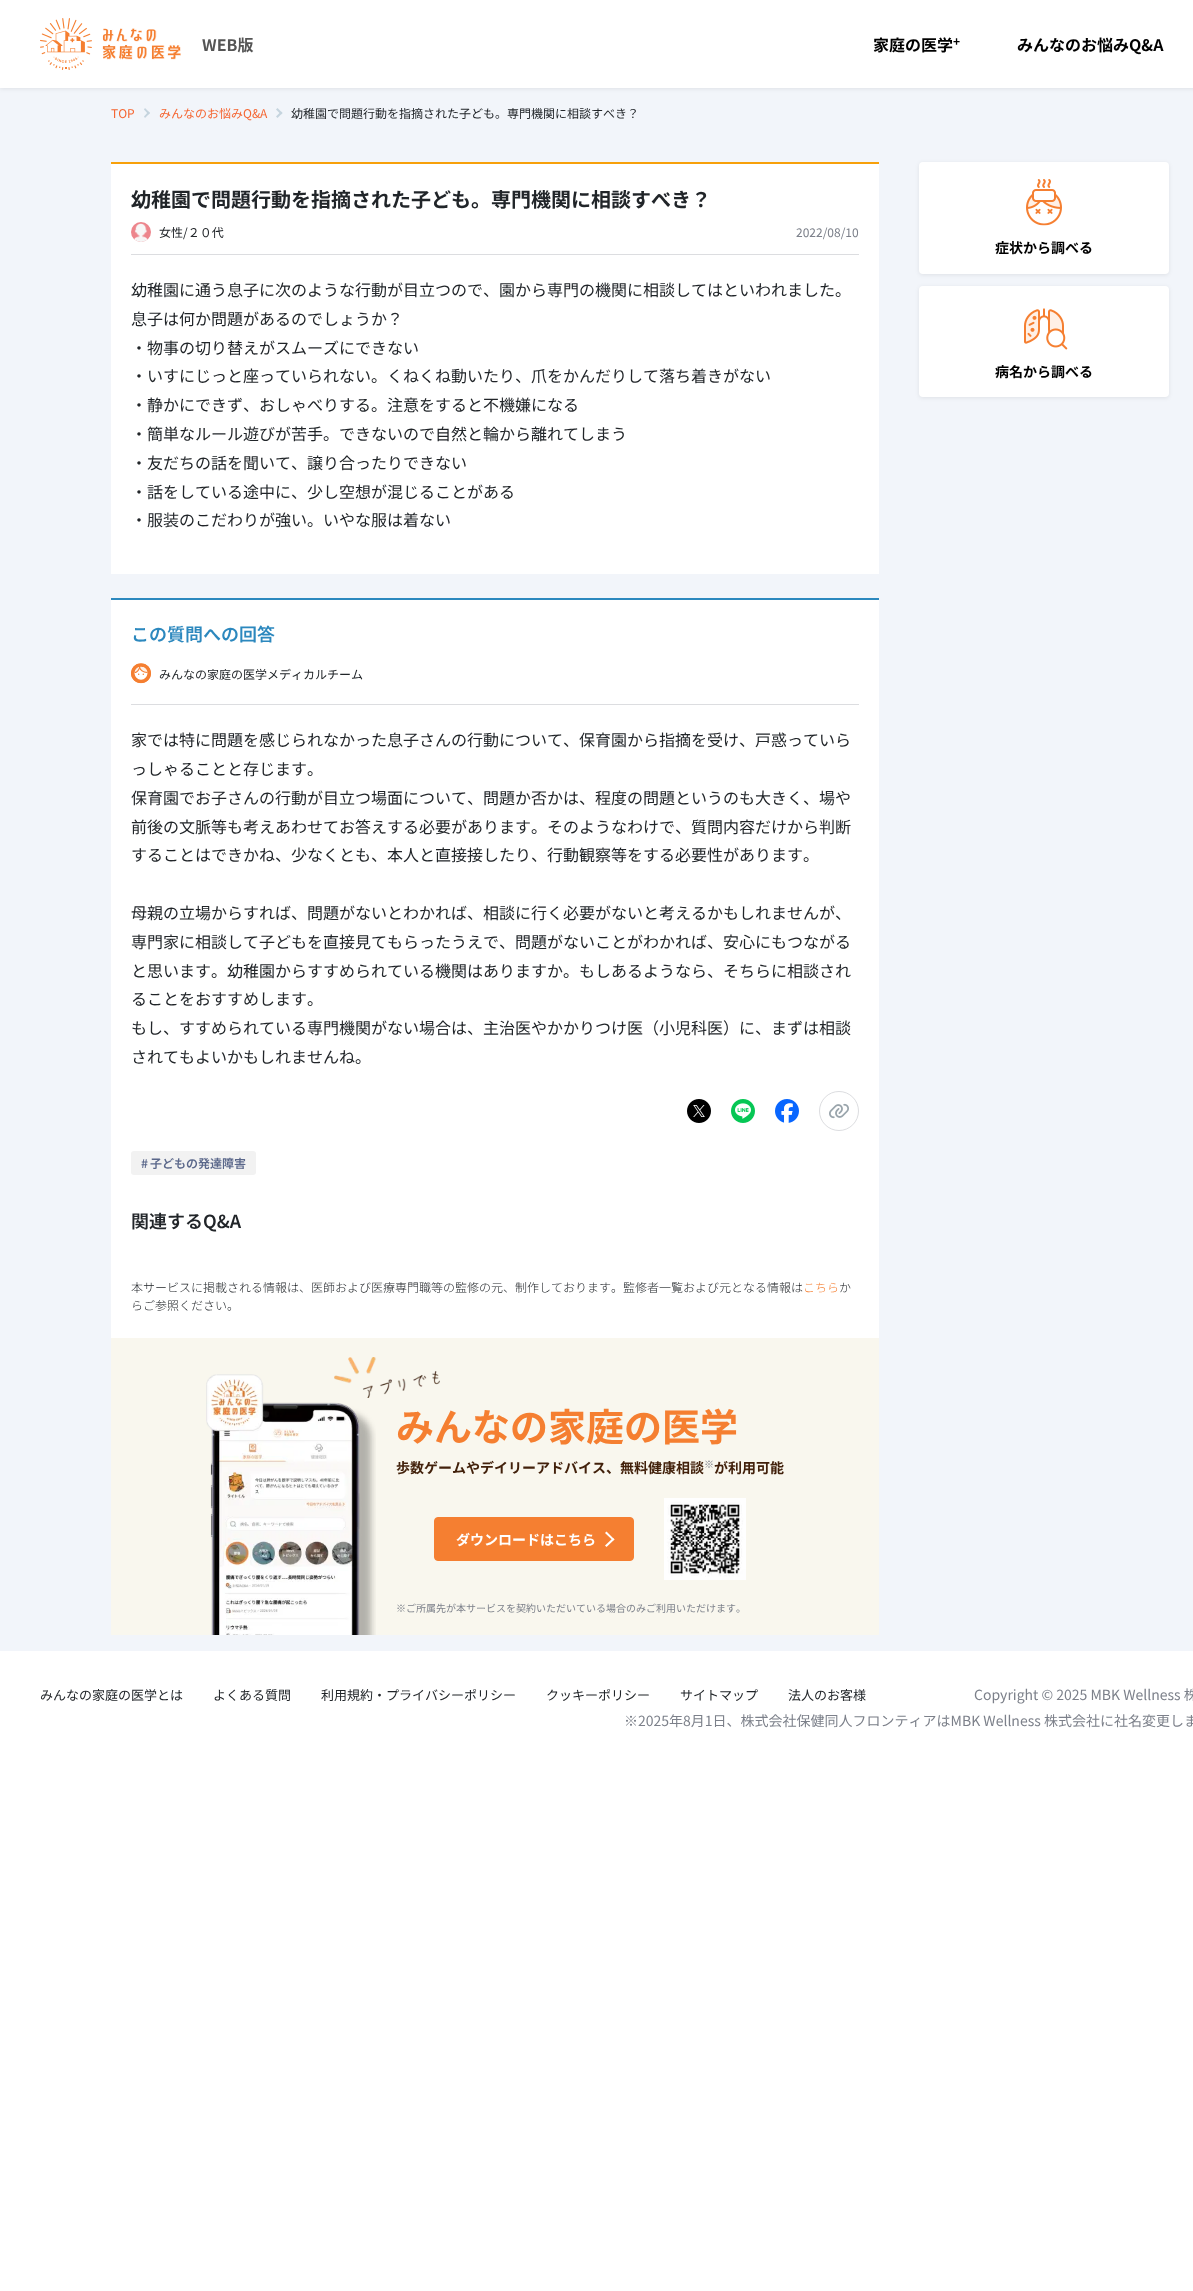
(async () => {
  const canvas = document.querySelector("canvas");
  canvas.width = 1193;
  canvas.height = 2291;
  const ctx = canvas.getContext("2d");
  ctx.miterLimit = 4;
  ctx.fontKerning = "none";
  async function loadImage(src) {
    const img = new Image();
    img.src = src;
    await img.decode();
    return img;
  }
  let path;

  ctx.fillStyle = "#ffffff";
  ctx.fillRect(0, 0, 1193, 2291);
  ctx.fillStyle = "#f2f5fa";
  ctx.fillRect(0, 88, 1193, 1563);
  ctx.fillStyle = "rgba(0, 0, 0, 0.08)";
  ctx.filter = "blur(2px)";
  ctx.beginPath();
  ctx.rect(0, 1, 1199, 88);
  ctx.fill();
  ctx.filter = "none";
  ctx.fillStyle = "#ffffff";
  ctx.fillRect(0, 0, 1193, 88);
  ctx.drawImage(await loadImage("img/1.png"), 40, 18, 141, 52);
  ctx.fillStyle = "#c5d4de";
  path = new Path2D("M145 108L150 113L148.5 114.5L144 109.5Z");
  ctx.fill(path);
  path = new Path2D("M148.5 111.5L150 113L145 118L144 116.5Z");
  ctx.fill(path);
  path = new Path2D("M277.5 108L282.5 113L281 114.5L276 109.5Z");
  ctx.fill(path);
  path = new Path2D("M281 111.5L282.5 113L277.5 118L276 116.5Z");
  ctx.fill(path);
  for (const [x, y, w, h, color] of [
    [111, 164, 768, 410, "#ffffff"],
    [111, 162, 768, 2, "#f7a00a"],
    [131, 254, 728, 1, "#dcdde0"],
  ]) {
    ctx.fillStyle = color;
    ctx.fillRect(x, y, w, h);
  }
  ctx.fillStyle = "#ed858c";
  ctx.beginPath();
  ctx.arc(141, 232, 10, 0, Math.PI * 2);
  ctx.fill();
  ctx.drawImage(await loadImage("img/2.png"), 134, 223, 14, 19);
  for (const [x, y, w, h, color] of [
    [111, 600, 768, 738, "#ffffff"],
    [111, 598, 768, 2, "#2c88be"],
    [131, 704, 728, 1, "#dcdde0"],
  ]) {
    ctx.fillStyle = color;
    ctx.fillRect(x, y, w, h);
  }
  ctx.drawImage(await loadImage("img/3.png"), 131, 663, 20, 21);
  ctx.drawImage(await loadImage("img/4.png"), 687, 1099, 24, 24);
  ctx.drawImage(await loadImage("img/5.png"), 731, 1099, 24, 24);
  ctx.drawImage(await loadImage("img/6.png"), 775, 1099, 24, 24);
  ctx.beginPath();
  ctx.arc(839, 1111, 19.5, 0, Math.PI * 2);
  ctx.strokeStyle = "#dcdde0";
  ctx.stroke();
  ctx.drawImage(await loadImage("img/7.png"), 829, 1103, 20, 16);
  ctx.fillStyle = "#f2f2f2";
  ctx.beginPath();
  ctx.roundRect(131, 1151, 125, 24, 3);
  ctx.fill();
  ctx.fillStyle = "#f9f7ee";
  ctx.fillRect(111, 1338, 768, 297);
  ctx.drawImage(await loadImage("img/8.png"), 206, 1374, 170, 261);
  ctx.drawImage(await loadImage("img/9.png"), 334, 1357, 106, 41);
  ctx.fillStyle = "#f57f31";
  ctx.beginPath();
  ctx.roundRect(434.5, 1517.5, 199, 43, 3.5);
  ctx.fill();
  ctx.strokeStyle = "#f57f31";
  ctx.stroke();
  ctx.fillStyle = "#ffffff";
  path = new Path2D("M606.5 1531.5L614.5 1539.5L613 1540.5L605 1533Z");
  ctx.fill(path);
  path = new Path2D("M613 1538L614.5 1539.5L606.5 1547L605 1545.5Z");
  ctx.fill(path);
  ctx.drawImage(await loadImage("img/10.png"), 664, 1498, 82, 82);
  ctx.fillStyle = "rgba(0, 0, 0, 0.08)";
  ctx.filter = "blur(2px)";
  ctx.beginPath();
  ctx.roundRect(919, 163, 250, 112, 4);
  ctx.fill();
  ctx.filter = "none";
  ctx.fillStyle = "#ffffff";
  ctx.beginPath();
  ctx.roundRect(919, 162, 250, 112, 4);
  ctx.fill();
  ctx.drawImage(await loadImage("img/11.png"), 1026, 179, 36, 47);
  ctx.fillStyle = "rgba(0, 0, 0, 0.08)";
  ctx.filter = "blur(2px)";
  ctx.beginPath();
  ctx.roundRect(919, 287, 250, 111, 4);
  ctx.fill();
  ctx.filter = "none";
  ctx.fillStyle = "#ffffff";
  ctx.beginPath();
  ctx.roundRect(919, 286, 250, 111, 4);
  ctx.fill();
  ctx.drawImage(await loadImage("img/12.png"), 1024, 308, 44, 42);
  ctx.font = "bold 16px Noto Sans JP";
  ctx.fillStyle = "#555555";
  ctx.fillText("WEB版", 202, 51);
  ctx.fillStyle = "#000000";
  ctx.fillText("家庭の医学", 873, 51);
  ctx.font = "bold 12px Noto Sans JP";
  ctx.fillText("+", 953, 46);
  ctx.font = "bold 16px Noto Sans JP";
  ctx.fillText("みんなのお悩みQ&A", 1017, 51);
  ctx.font = "12px Noto Sans JP";
  ctx.fillStyle = "#f56531";
  ctx.fillText("TOP", 111, 118);
  ctx.fillText("みんなのお悩みQ&A", 159, 118);
  ctx.fillStyle = "#212529";
  ctx.fillText("幼稚園で問題行動を指摘された子ども。専門機関に相談すべき？", 291, 118);
  ctx.font = "bold 20px Noto Sans JP";
  ctx.fillText("幼稚園で問題行動を指摘された子ども。専門機関に相談すべき？", 131, 207);
  ctx.font = "12px Noto Sans JP";
  ctx.fillText("女性/２０代", 159, 237);
  ctx.fillStyle = "#7c808a";
  ctx.fillText("2022/08/10", 796, 237);
  ctx.font = "16px Noto Sans JP";
  ctx.fillStyle = "#212529";
  for (const [text, x, y] of [
    ["幼稚園に通う息子に次のような行動が目立つので、園から専門の機関に相談してはといわれました。", 131, 296],
    ["息子は何か問題があるのでしょうか？", 131, 325],
    ["・物事の切り替えがスムーズにできない", 131, 354],
    ["・いすにじっと座っていられない。くねくね動いたり、爪をかんだりして落ち着きがない", 131, 382],
    ["・静かにできず、おしゃべりする。注意をすると不機嫌になる", 131, 411],
    ["・簡単なルール遊びが苦手。できないので自然と輪から離れてしまう", 131, 440],
    ["・友だちの話を聞いて、譲り合ったりできない", 131, 469],
    ["・話をしている途中に、少し空想が混じることがある", 131, 498],
    ["・服装のこだわりが強い。いやな服は着ない", 131, 526],
  ]) {
    ctx.fillText(text, x, y);
  }
  ctx.font = "600 18px Noto Sans JP";
  ctx.fillStyle = "#2c88be";
  ctx.fillText("この質問への回答", 131, 641);
  ctx.font = "12px Noto Sans JP";
  ctx.fillStyle = "#212529";
  ctx.fillText("みんなの家庭の医学メディカルチーム", 159, 679);
  ctx.font = "16px Noto Sans JP";
  for (const [text, x, y] of [
    ["家では特に問題を感じられなかった息子さんの行動について、保育園から指摘を受け、戸惑っていら", 131, 746],
    ["っしゃることと存じます。", 131, 775],
    ["保育園でお子さんの行動が目立つ場面について、問題か否かは、程度の問題というのも大きく、場や", 131, 804],
    ["前後の文脈等も考えあわせてお答えする必要があります。そのようなわけで、質問内容だけから判断", 131, 833],
    ["することはできかね、少なくとも、本人と直接接したり、行動観察等をする必要性があります。", 131, 861],
    ["母親の立場からすれば、問題がないとわかれば、相談に行く必要がないと考えるかもしれませんが、", 131, 919],
    ["専門家に相談して子どもを直接見てもらったうえで、問題がないことがわかれば、安心にもつながる", 131, 948],
    ["と思います。幼稚園からすすめられている機関はありますか。もしあるようなら、そちらに相談され", 131, 977],
    ["ることをおすすめします。", 131, 1005],
    ["もし、すすめられている専門機関がない場合は、主治医やかかりつけ医（小児科医）に、まずは相談", 131, 1034],
    ["されてもよいかもしれませんね。", 131, 1063],
  ]) {
    ctx.fillText(text, x, y);
  }
  ctx.font = "600 12px Noto Sans JP";
  ctx.fillStyle = "#5a678a";
  ctx.fillText("#", 141, 1168);
  ctx.fillText("子どもの発達障害", 150, 1168);
  ctx.font = "600 18px Noto Sans JP";
  ctx.fillStyle = "#212529";
  ctx.fillText("関連するQ&A", 131, 1228);
  ctx.font = "300 12px Noto Sans JP";
  ctx.fillText("本サービスに掲載される情報は、医師および医療専門職等の監修の元、制作しております。監修者一覧および元となる情報は", 131, 1292);
  ctx.fillStyle = "#f57f31";
  ctx.fillText("こちら", 803, 1292);
  ctx.fillStyle = "#212529";
  ctx.fillText("か", 839, 1292);
  ctx.fillText("らご参照ください。", 131, 1310);
  ctx.font = "bold 38px Noto Sans JP";
  ctx.fillStyle = "#f57f31";
  ctx.fillText("みんなの家庭の医学", 396, 1441);
  ctx.font = "bold 14px Noto Sans JP";
  ctx.fillStyle = "#42210b";
  ctx.fillText("歩数ゲームやデイリーアドバイス、無料健康相談", 396, 1473);
  ctx.font = "10px Noto Sans JP";
  ctx.fillStyle = "#7c808a";
  ctx.fillText("※", 704, 1468);
  ctx.font = "bold 14px Noto Sans JP";
  ctx.fillStyle = "#42210b";
  ctx.fillText("が利用可能", 714, 1473);
  ctx.fillStyle = "#ffffff";
  ctx.fillText("ダウンロードはこちら", 456, 1545);
  ctx.font = "10px Noto Sans JP";
  ctx.fillStyle = "#7c808a";
  ctx.fillText("※ご所属先が本サービスを契約いただいている場合のみご利用いただけます。", 396, 1612);
  ctx.font = "bold 14px Noto Sans JP";
  ctx.fillStyle = "#000000";
  ctx.fillText("症状から調べる", 995, 253);
  ctx.fillText("病名から調べる", 995, 377);
  ctx.font = "13px Noto Sans JP";
  ctx.fillStyle = "#212529";
  for (const [text, x, y] of [
    ["みんなの家庭の医学とは", 40, 1700],
    ["よくある質問", 213, 1700],
    ["利用規約・プライバシーポリシー", 321, 1700],
    ["クッキーポリシー", 546, 1700],
    ["サイトマップ", 680, 1700],
    ["法人のお客様", 788, 1700],
  ]) {
    ctx.fillText(text, x, y);
  }
  ctx.font = "14px Noto Sans JP";
  ctx.fillStyle = "#7c808a";
  ctx.fillText("Copyright © 2025 MBK Wellness 株", 974, 1700);
  ctx.fillText("※2025年8月1日、株式会社保健同人フロンティアはMBK Wellness 株式会社に社名変更しま", 624, 1726);
})();
